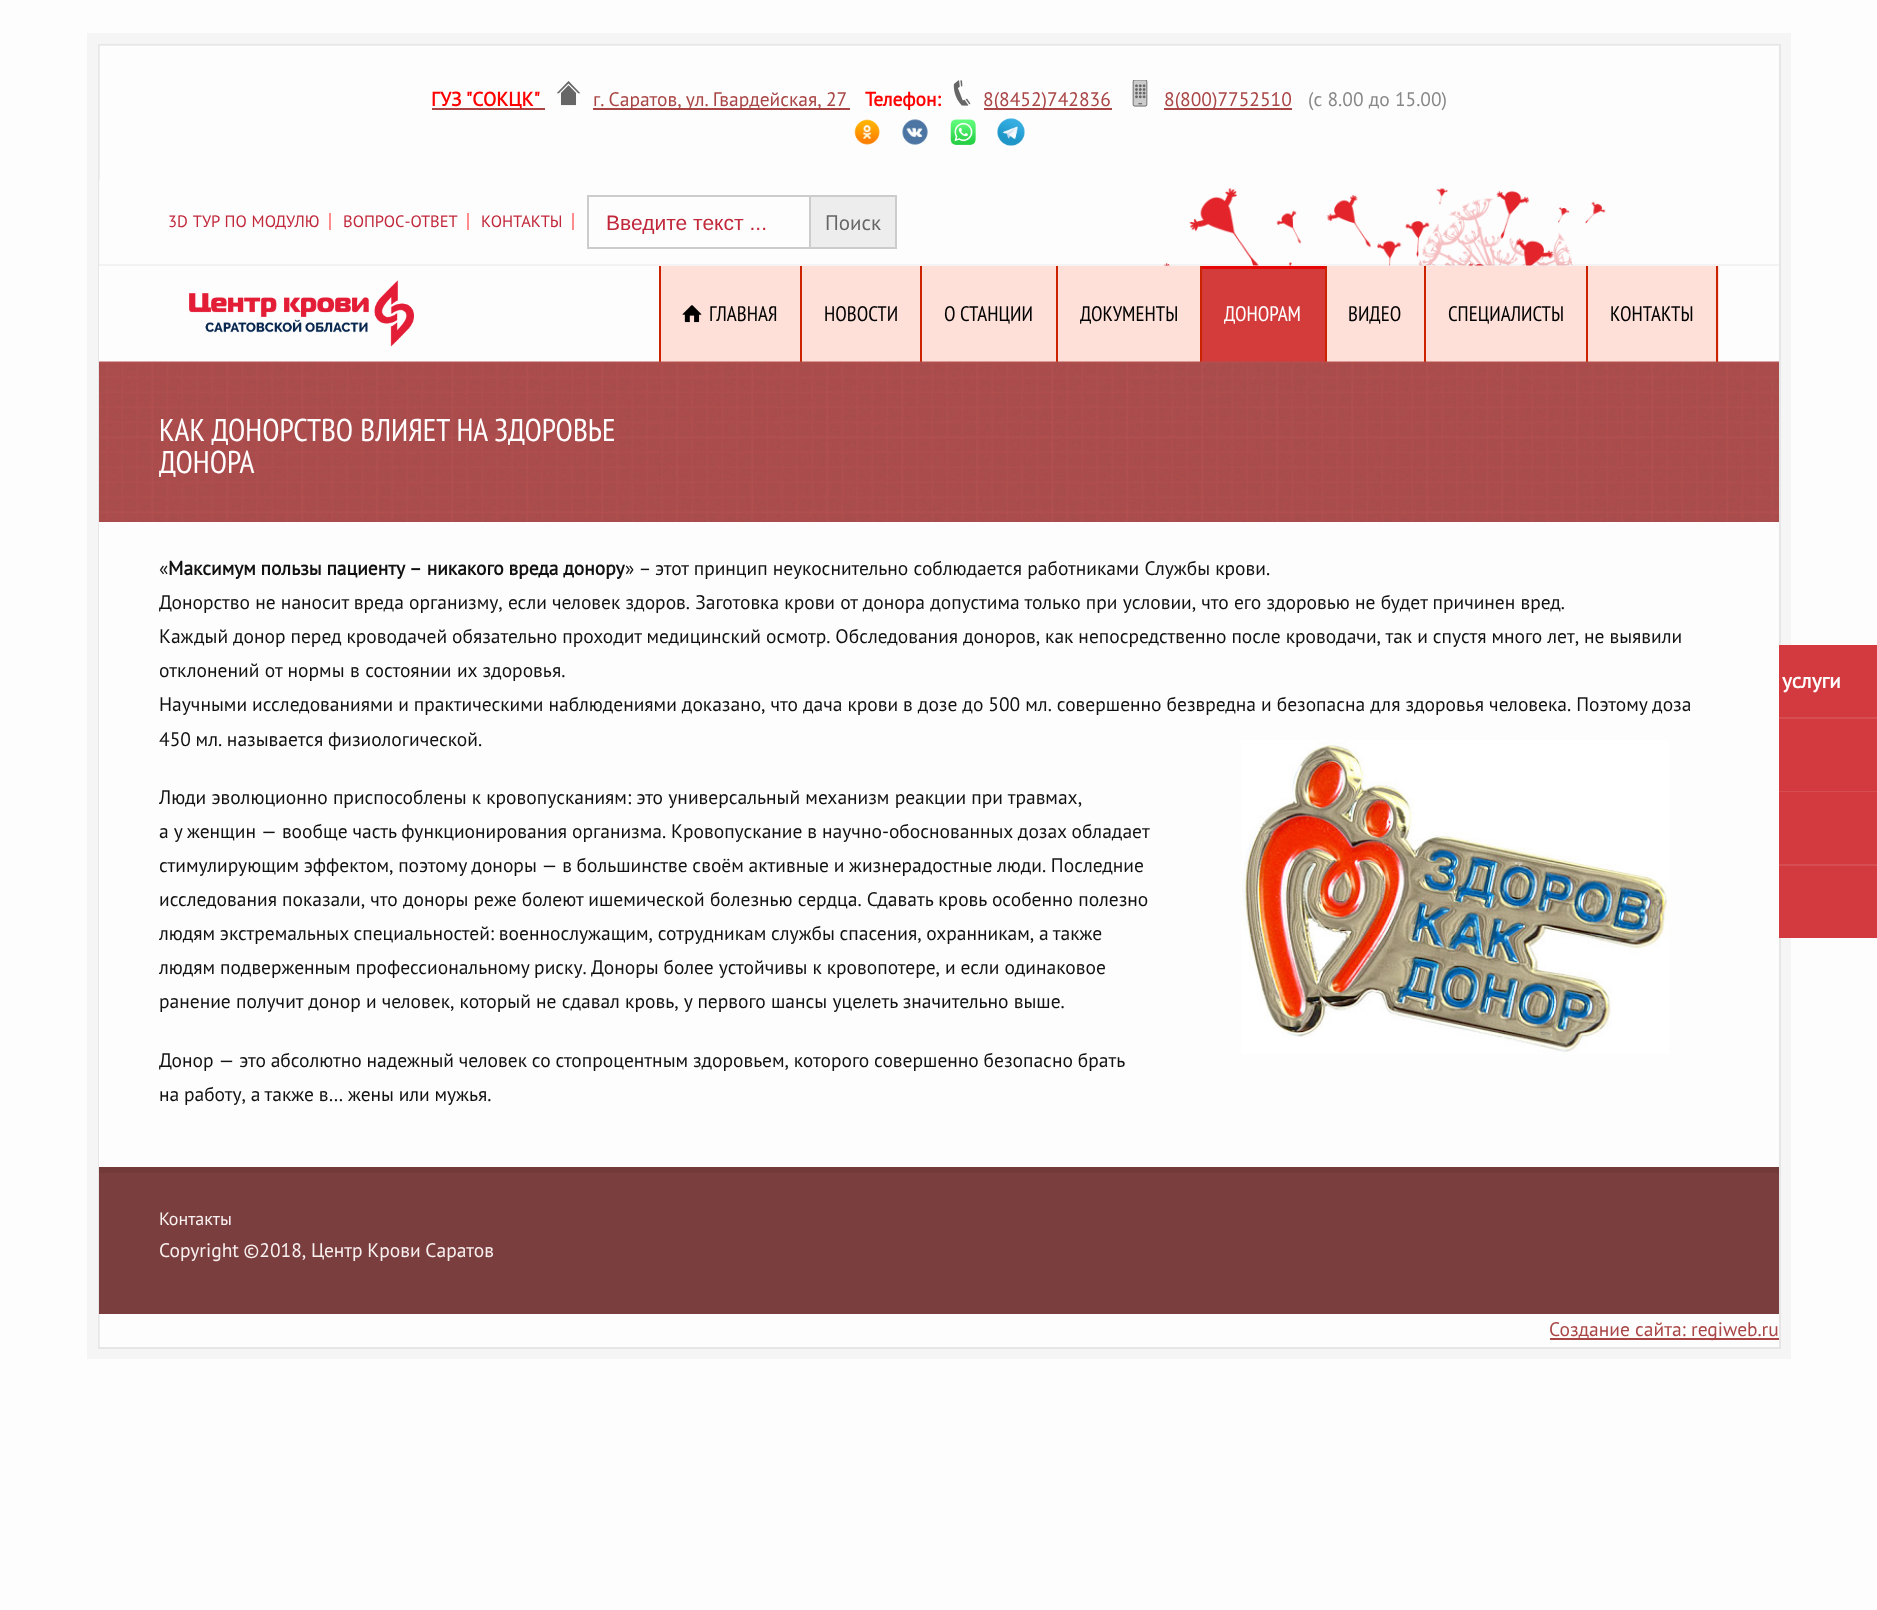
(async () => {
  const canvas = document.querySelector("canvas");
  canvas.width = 1877;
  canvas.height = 1610;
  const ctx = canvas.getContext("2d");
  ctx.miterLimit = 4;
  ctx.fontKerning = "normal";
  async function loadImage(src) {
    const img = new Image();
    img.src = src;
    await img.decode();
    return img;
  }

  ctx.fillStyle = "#fdfdfd";
  ctx.fillRect(0, 0, 1877, 1610);
  ctx.strokeStyle = "#eeeeee";
  ctx.lineWidth = 2;
  ctx.strokeRect(99, 45, 1681, 1303);
  ctx.strokeStyle = "rgba(0, 0, 0, 0.03)";
  ctx.lineWidth = 12;
  ctx.strokeRect(93, 39, 1692, 1314);
  ctx.fillStyle = "#a94545";
  ctx.fillRect(432, 108, 113, 2);
  ctx.drawImage(await loadImage("img/1.png"), 556, 81, 25, 25);
  ctx.fillRect(593, 108, 252, 2);
  ctx.fillRect(845, 108, 5, 2);
  ctx.drawImage(await loadImage("img/2.png"), 953, 80, 18, 26);
  ctx.fillRect(984, 108, 128, 2);
  ctx.drawImage(await loadImage("img/3.png"), 1132, 80, 16, 27);
  ctx.fillRect(1164, 108, 128, 2);
  ctx.drawImage(await loadImage("img/4.png"), 854, 119, 26, 26);
  ctx.drawImage(await loadImage("img/5.png"), 902, 119, 26, 26);
  ctx.drawImage(await loadImage("img/6.png"), 950, 119, 26, 26);
  ctx.drawImage(await loadImage("img/7.png"), 997, 118, 28, 28);
  ctx.fillStyle = "rgba(255, 255, 255, 0.65)";
  ctx.fillRect(99, 180, 1, 86);
  ctx.drawImage(await loadImage("img/8.png"), 1164, 188, 442, 78);
  for (const [x, y, w, h, color] of [
    [99, 264, 1680, 2, "rgba(0, 0, 0, 0.04)"],
    [329, 213, 2, 17, "#ff8d8d"],
    [467, 213, 2, 17, "#ff8d8d"],
    [572, 213, 2, 17, "#ff8d8d"],
  ]) {
    ctx.fillStyle = color;
    ctx.fillRect(x, y, w, h);
  }
  ctx.strokeStyle = "#cccccc";
  ctx.lineWidth = 2;
  ctx.strokeRect(588, 196, 308, 52);
  ctx.fillStyle = "#ededed";
  ctx.beginPath();
  ctx.rect(810, 196, 86, 52);
  ctx.fill();
  ctx.stroke();
  ctx.fillStyle = "#ffffff";
  ctx.fillRect(99, 266, 1, 96);
  ctx.drawImage(await loadImage("img/9.png"), 189, 280, 225, 67);
  for (const [x, y, w, h, color] of [
    [661, 266, 1058, 96, "#ffe0d8"],
    [800, 266, 2, 96, "#cc2200"],
    [659, 266, 2, 96, "#cc2200"],
  ]) {
    ctx.fillStyle = color;
    ctx.fillRect(x, y, w, h);
  }
  ctx.drawImage(await loadImage("img/10.png"), 682, 305, 20, 18);
  for (const [x, y, w, h, color] of [
    [920, 266, 2, 96, "#cc2200"],
    [1056, 266, 2, 96, "#cc2200"],
    [1200, 266, 2, 96, "#cc2200"],
    [1202, 269, 123, 93, "#d43b3b"],
    [1325, 266, 2, 96, "#cc2200"],
    [1202, 266, 123, 3, "#e80505"],
    [1424, 266, 2, 96, "#cc2200"],
    [1586, 266, 2, 96, "#cc2200"],
    [1716, 266, 2, 96, "#cc2200"],
  ]) {
    ctx.fillStyle = color;
    ctx.fillRect(x, y, w, h);
  }
  ctx.drawImage(await loadImage("img/11.png"), 99, 361, 1680, 161);
  ctx.fillStyle = "#ffffff";
  ctx.fillRect(99, 522, 1, 645);
  ctx.drawImage(await loadImage("img/12.png"), 1241, 740, 428, 314);
  for (const [x, y, w, h, color] of [
    [1779, 645, 98, 72, "#d23a3f"],
    [1779, 717, 98, 2, "#d74e52"],
    [1779, 719, 98, 145, "#d23a3f"],
    [1779, 791, 98, 1, "rgba(255, 255, 255, 0.1)"],
    [1779, 864, 98, 2, "#d74e52"],
    [1779, 866, 98, 72, "#d23a3f"],
    [99, 1173, 1680, 141, "#7a3e3e"],
    [99, 1167, 1680, 6, "#733a3a"],
    [1550, 1338, 229, 2, "#a94545"],
  ]) {
    ctx.fillStyle = color;
    ctx.fillRect(x, y, w, h);
  }
  ctx.wordSpacing = "-1px";
  ctx.font = "bold 19.5px PT Sans";
  ctx.fillStyle = "#ff0000";
  ctx.fillText("ГУЗ \"СОКЦК\"", 431, 106);
  ctx.font = "19.5px PT Sans";
  ctx.fillStyle = "#a94545";
  ctx.fillText("г. Саратов, ул. Гвардейская, 27", 593, 106);
  ctx.wordSpacing = "0px";
  ctx.font = "bold 19.5px PT Sans";
  ctx.fillStyle = "#ff0000";
  ctx.fillText("Телефон:", 865, 106);
  ctx.font = "19.5px PT Sans";
  ctx.fillStyle = "#a94545";
  ctx.fillText("8(8452)742836", 983, 106);
  ctx.fillText("8(800)7752510", 1164, 106);
  ctx.fillStyle = "#888888";
  ctx.fillText("(с 8.00 до 15.00)", 1308, 106);
  ctx.wordSpacing = "0.5px";
  ctx.font = "16.5px PT Sans";
  ctx.fillStyle = "#c1283b";
  ctx.fillText("3D ТУР ПО МОДУЛЮ", 168, 227);
  ctx.wordSpacing = "0px";
  ctx.fillText("ВОПРОС-ОТВЕТ", 343, 227);
  ctx.fillText("КОНТАКТЫ", 481, 227);
  ctx.save();
  ctx.beginPath();
  ctx.rect(606, 210, 272, 24);
  ctx.clip();
  ctx.font = "21px Liberation Sans";
  ctx.fillText("Введите текст ...", 606, 230);
  ctx.restore();
  ctx.font = "21px PT Sans";
  ctx.fillStyle = "#666666";
  ctx.fillText("Поиск", 825, 230);
  ctx.font = "21px PT Sans Narrow";
  ctx.fillStyle = "#000000";
  for (const [text, x, y] of [
    ["ГЛАВНАЯ", 709, 321],
    ["НОВОСТИ", 824, 321],
    ["О СТАНЦИИ", 944, 321],
    ["ДОКУМЕНТЫ", 1080, 321],
  ]) {
    ctx.fillText(text, x, y);
  }
  ctx.fillStyle = "#ffffff";
  ctx.fillText("ДОНОРАМ", 1224, 321);
  ctx.fillStyle = "#000000";
  for (const [text, x, y] of [
    ["ВИДЕО", 1348, 321],
    ["СПЕЦИАЛИСТЫ", 1448, 321],
    ["КОНТАКТЫ", 1610, 321],
  ]) {
    ctx.fillText(text, x, y);
  }
  ctx.wordSpacing = "0.5px";
  ctx.font = "31.5px PT Sans Narrow";
  ctx.fillStyle = "#ffffff";
  ctx.fillText("КАК ДОНОРСТВО ВЛИЯЕТ НА ЗДОРОВЬЕ", 159, 441);
  ctx.wordSpacing = "0px";
  ctx.fillText("ДОНОРА", 159, 473);
  ctx.font = "19.5px PT Sans";
  ctx.fillStyle = "#111111";
  ctx.fillText("«", 159, 575);
  ctx.wordSpacing = "-0.5px";
  ctx.font = "bold 19.5px PT Sans";
  ctx.fillText("Максимум пользы пациенту – никакого вреда донору", 168, 575);
  ctx.wordSpacing = "-1px";
  ctx.font = "19.5px PT Sans";
  ctx.fillText("» –", 625, 575);
  ctx.wordSpacing = "0px";
  ctx.fillText("этот принцип неукоснительно соблюдается работниками Службы крови.", 655, 575);
  ctx.fillText("Донорство не наносит вреда организму, если человек здоров. Заготовка крови от донора допустима только при условии, что его здоровью не будет причинен вред.", 159, 609);
  ctx.wordSpacing = "-0.25px";
  ctx.fillText("Каждый донор перед кроводачей обязательно проходит медицинский осмотр. Обследования доноров, как непосредственно после кроводачи, так и спустя много лет, не выявили", 159, 643);
  ctx.wordSpacing = "0.25px";
  ctx.fillText("отклонений от нормы в состоянии их здоровья.", 159, 677);
  ctx.wordSpacing = "-0.2px";
  ctx.fillText("Научными исследованиями и практическими наблюдениями доказано, что дача крови в дозе до 500 мл. совершенно безвредна и безопасна для здоровья человека. Поэтому доза", 159, 711);
  ctx.wordSpacing = "-0.5px";
  ctx.fillText("450 мл. называется физиологической.", 159, 746);
  ctx.wordSpacing = "0px";
  ctx.fillText("Люди эволюционно приспособлены к кровопусканиям: это универсальный механизм реакции при травмах,", 159, 804);
  ctx.wordSpacing = "-0.25px";
  ctx.fillText("а у женщин — вообще часть функционирования организма. Кровопускание в научно-обоснованных дозах обладает", 159, 838);
  ctx.wordSpacing = "-0.5px";
  ctx.fillText("стимулирующим эффектом, поэтому доноры — в большинстве своём активные и жизнерадостные люди. Последние", 159, 872);
  ctx.wordSpacing = "0px";
  ctx.fillText("исследования показали, что доноры реже болеют ишемической болезнью сердца. Сдавать кровь особенно полезно", 159, 906);
  ctx.wordSpacing = "-0.5px";
  ctx.fillText("людям экстремальных специальностей: военнослужащим, сотрудникам службы спасения, охранникам, а также", 159, 940);
  ctx.wordSpacing = "-0.25px";
  ctx.fillText("людям подверженным профессиональному риску. Доноры более устойчивы к кровопотере, и если одинаковое", 159, 974);
  ctx.wordSpacing = "0px";
  ctx.fillText("ранение получит донор и человек, который не сдавал кровь, у первого шансы уцелеть значительно выше.", 159, 1008);
  ctx.wordSpacing = "-0.4px";
  ctx.fillText("Донор — это абсолютно надежный человек со стопроцентным здоровьем, которого совершенно безопасно брать", 159, 1067);
  ctx.wordSpacing = "-0.5px";
  ctx.fillText("на работу, а также в… жены или мужья.", 159, 1101);
  ctx.wordSpacing = "-1px";
  ctx.font = "bold 21px PT Sans";
  ctx.fillStyle = "#ffffff";
  ctx.fillText("услуги", 1782, 688);
  ctx.wordSpacing = "0px";
  ctx.font = "18px PT Sans";
  ctx.fillStyle = "#f9f0f0";
  ctx.fillText("Контакты", 159, 1225);
  ctx.wordSpacing = "-0.5px";
  ctx.font = "19.5px PT Sans";
  ctx.fillText("Copyright ©2018, Центр Крови Саратов", 159, 1257);
  ctx.wordSpacing = "0px";
  ctx.fillStyle = "#a94545";
  ctx.fillText("Создание сайта: regiweb.ru", 1549, 1336);
})();
